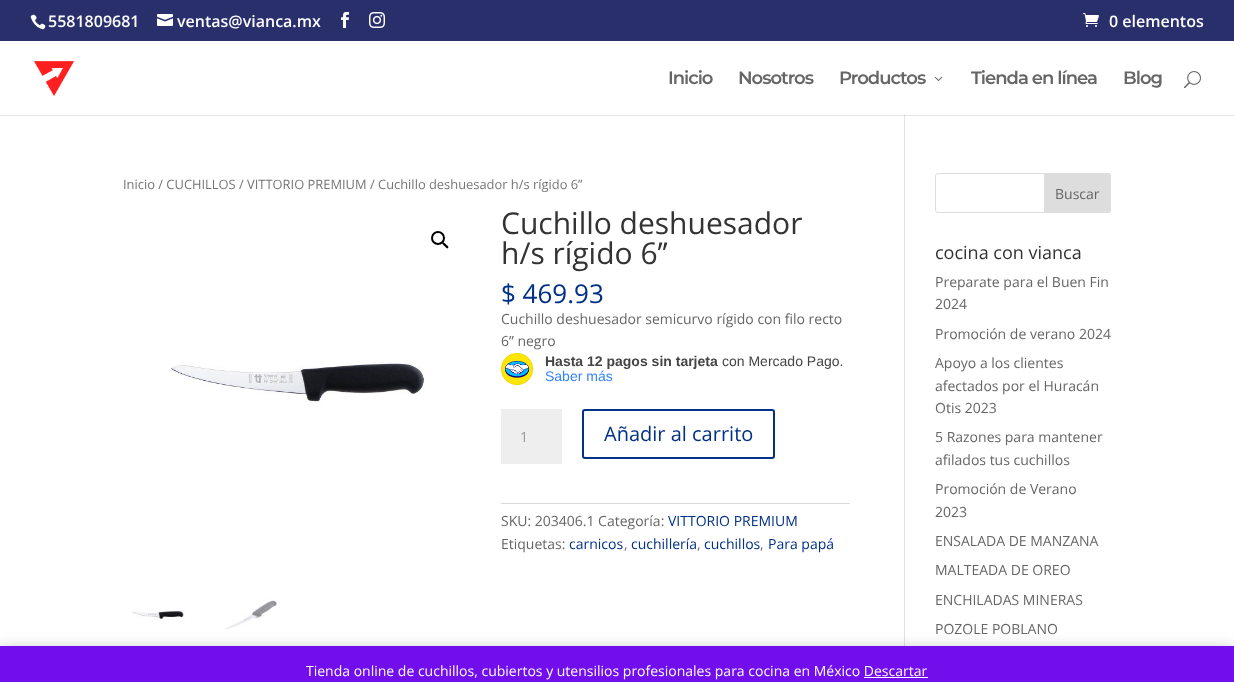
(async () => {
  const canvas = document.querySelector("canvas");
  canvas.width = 1234;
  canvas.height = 682;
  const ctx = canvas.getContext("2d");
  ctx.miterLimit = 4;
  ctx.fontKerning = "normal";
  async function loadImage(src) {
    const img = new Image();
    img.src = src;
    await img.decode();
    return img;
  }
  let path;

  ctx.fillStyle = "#ffffff";
  ctx.fillRect(0, 0, 1234, 682);
  ctx.fillStyle = "#282f6b";
  ctx.fillRect(0, 0, 1234, 41);
  ctx.drawImage(await loadImage("img/1.png"), 30, 14, 16, 16);
  ctx.drawImage(await loadImage("img/2.png"), 157, 14, 16, 12);
  ctx.drawImage(await loadImage("img/3.png"), 341, 12, 8, 16);
  ctx.drawImage(await loadImage("img/4.png"), 369, 12, 16, 16);
  ctx.drawImage(await loadImage("img/5.png"), 1083, 13, 16, 14);
  ctx.drawImage(await loadImage("img/6.png"), 34, 61, 40, 35);
  ctx.drawImage(await loadImage("img/7.png"), 934, 76, 9, 5);
  ctx.drawImage(await loadImage("img/8.png"), 1184, 71, 17, 18);
  for (const [x, y, w, h, color] of [
    [0, 115, 1234, 1, "#e6e6e6"],
    [904, 115, 1, 531, "#e2e2e2"],
    [904, 115, 1, 1, "#cbcbcb"],
  ]) {
    ctx.fillStyle = color;
    ctx.fillRect(x, y, w, h);
  }
  ctx.beginPath();
  ctx.arc(438, 238, 6, 0, Math.PI * 2);
  ctx.strokeStyle = "#000000";
  ctx.lineWidth = 2;
  ctx.stroke();
  ctx.fillStyle = "#000000";
  path = new Path2D("M442.5 242.5C443.5 241.5 445.5 244 446 244.5C446.5 245 449.5 247 448 248C447 249.5 445 246.5 444.5 246C444 245.5 441.5 243.5 442.5 242.5Z");
  ctx.fill(path);
  ctx.drawImage(await loadImage("img/9.png"), 170, 362, 255, 41);
  ctx.drawImage(await loadImage("img/10.png"), 132, 608, 53, 12);
  ctx.drawImage(await loadImage("img/11.png"), 225, 598, 52, 32);
  ctx.drawImage(await loadImage("img/12.png"), 501, 353, 32, 32);
  ctx.fillStyle = "#eeeeee";
  ctx.fillRect(501, 409, 61, 55);
  ctx.beginPath();
  ctx.roundRect(583, 410, 191, 48, 2);
  ctx.strokeStyle = "#013087";
  ctx.stroke();
  ctx.fillStyle = "#dadada";
  ctx.fillRect(501, 503, 349, 1);
  ctx.beginPath();
  ctx.roundRect(935.5, 173.5, 175, 39, 2.5);
  ctx.strokeStyle = "#dddddd";
  ctx.lineWidth = 1;
  ctx.stroke();
  ctx.fillStyle = "#dddddd";
  ctx.beginPath();
  ctx.roundRect(1044.5, 173.5, 66, 39, [0, 2.5, 2.5, 0]);
  ctx.fill();
  ctx.stroke();
  ctx.fillStyle = "rgba(0, 0, 0, 0.2)";
  ctx.filter = "blur(7px)";
  ctx.beginPath();
  ctx.rect(0, 647, 1234, 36);
  ctx.fill();
  ctx.filter = "none";
  ctx.fillStyle = "#720eec";
  ctx.fillRect(0, 646, 1234, 36);
  ctx.fillStyle = "#fcfbfe";
  ctx.fillRect(864, 677, 64, 1);
  ctx.font = "600 16px Open Sans";
  for (const [text, x, y] of [
    ["5581809681", 48, 27],
    ["ventas@vianca.mx", 177, 27],
    ["0 elementos", 1109, 27],
  ]) {
    ctx.fillText(text, x, y);
  }
  ctx.letterSpacing = "-1px";
  ctx.font = "600 18px Montserrat";
  ctx.fillStyle = "#666666";
  for (const [text, x, y] of [
    ["Inicio", 668, 84],
    ["Nosotros", 738, 84],
    ["Productos", 839, 84],
    ["Tienda en línea", 971, 84],
    ["Blog", 1123, 84],
  ]) {
    ctx.fillText(text, x, y);
  }
  ctx.letterSpacing = "0px";
  ctx.font = "12.9px Open Sans";
  ctx.fillStyle = "#767676";
  ctx.fillText("Inicio / CUCHILLOS / VITTORIO PREMIUM / Cuchillo deshuesador h/s rígido 6’’", 123, 189);
  ctx.font = "30px Open Sans";
  ctx.fillStyle = "#333333";
  ctx.fillText("Cuchillo deshuesador", 501, 234);
  ctx.fillText("h/s rígido 6’’", 501, 264);
  ctx.font = "26px Open Sans";
  ctx.fillStyle = "#013087";
  ctx.fillText("$ 469.93", 501, 303);
  ctx.font = "14px Open Sans";
  ctx.fillStyle = "#666666";
  ctx.fillText("Cuchillo deshuesador semicurvo rígido con filo recto", 501, 324);
  ctx.fillText("6’’ negro", 501, 346);
  ctx.font = "bold 14px Liberation Sans";
  ctx.fillStyle = "#464545";
  ctx.fillText("Hasta 12 pagos sin tarjeta", 545, 366);
  ctx.font = "14px Liberation Sans";
  ctx.fillText("con Mercado Pago.", 722, 366);
  ctx.fillStyle = "#3483fa";
  ctx.fillText("Saber más", 545, 381);
  ctx.font = "14px Open Sans";
  ctx.fillStyle = "#999999";
  ctx.fillText("1", 520, 442);
  ctx.font = "20px Open Sans";
  ctx.fillStyle = "#013087";
  ctx.fillText("Añadir al carrito", 604, 441);
  ctx.font = "14px Open Sans";
  ctx.fillStyle = "#666666";
  ctx.fillText("SKU: 203406.1 Categoría:", 501, 526);
  ctx.fillStyle = "#013087";
  ctx.fillText("VITTORIO PREMIUM", 668, 526);
  ctx.fillStyle = "#666666";
  ctx.fillText("Etiquetas:", 501, 549);
  ctx.fillStyle = "#013087";
  ctx.fillText("carnicos", 569, 549);
  ctx.fillStyle = "#666666";
  ctx.fillText(",", 624, 549);
  ctx.fillStyle = "#013087";
  ctx.fillText("cuchillería", 631, 549);
  ctx.fillStyle = "#666666";
  ctx.fillText(",", 697, 549);
  ctx.fillStyle = "#013087";
  ctx.fillText("cuchillos", 704, 549);
  ctx.fillStyle = "#666666";
  ctx.fillText(",", 760, 549);
  ctx.fillStyle = "#013087";
  ctx.fillText("Para papá", 768, 549);
  ctx.fillStyle = "#666666";
  ctx.fillText("Buscar", 1055, 199);
  ctx.font = "18px Open Sans";
  ctx.fillStyle = "#333333";
  ctx.fillText("cocina con vianca", 935, 259);
  ctx.font = "14px Open Sans";
  ctx.fillStyle = "#666666";
  for (const [text, x, y] of [
    ["Preparate para el Buen Fin", 935, 287],
    ["2024", 935, 309],
    ["Promoción de verano 2024", 935, 339],
    ["Apoyo a los clientes", 935, 368],
    ["afectados por el Huracán", 935, 391],
    ["Otis 2023", 935, 413],
    ["5 Razones para mantener", 935, 442],
    ["afilados tus cuchillos", 935, 465],
    ["Promoción de Verano", 935, 494],
    ["2023", 935, 517],
    ["ENSALADA DE MANZANA", 935, 546],
    ["MALTEADA DE OREO", 935, 575],
    ["ENCHILADAS MINERAS", 935, 605],
    ["POZOLE POBLANO", 935, 634],
  ]) {
    ctx.fillText(text, x, y);
  }
  ctx.fillStyle = "#fcfbfe";
  ctx.fillText("Tienda online de cuchillos, cubiertos y utensilios profesionales para cocina en México Descartar", 306, 676);
})();
